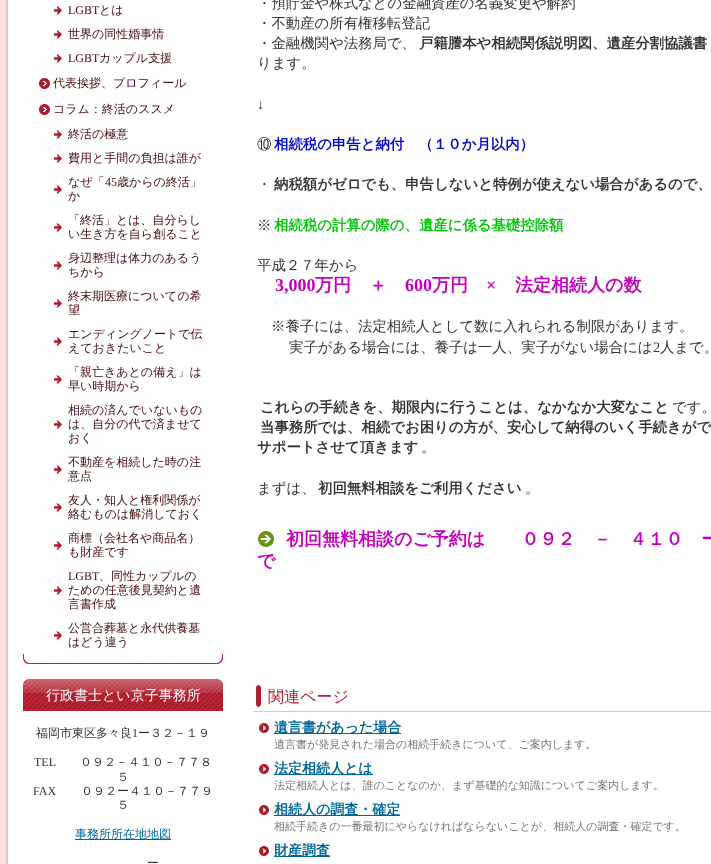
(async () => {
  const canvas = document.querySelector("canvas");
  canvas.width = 711;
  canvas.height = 864;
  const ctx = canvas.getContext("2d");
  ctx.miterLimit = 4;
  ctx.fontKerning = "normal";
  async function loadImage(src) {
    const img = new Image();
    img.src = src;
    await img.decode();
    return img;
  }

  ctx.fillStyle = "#ffdee4";
  ctx.fillRect(0, 0, 711, 864);
  ctx.drawImage(await loadImage("img/1.png"), 5, 0, 706, 864);
  ctx.drawImage(await loadImage("img/2.png"), 23, 654, 200, 10);
  ctx.drawImage(await loadImage("img/3.png"), 54, 6, 8, 9);
  ctx.drawImage(await loadImage("img/3.png"), 54, 30, 8, 9);
  ctx.drawImage(await loadImage("img/3.png"), 54, 54, 8, 9);
  ctx.drawImage(await loadImage("img/4.png"), 39, 78, 11, 11);
  ctx.drawImage(await loadImage("img/4.png"), 39, 104, 11, 11);
  ctx.drawImage(await loadImage("img/3.png"), 54, 130, 8, 9);
  ctx.drawImage(await loadImage("img/3.png"), 54, 154, 8, 9);
  ctx.drawImage(await loadImage("img/3.png"), 54, 185, 8, 9);
  ctx.drawImage(await loadImage("img/3.png"), 54, 223, 8, 9);
  ctx.drawImage(await loadImage("img/3.png"), 54, 261, 8, 9);
  ctx.drawImage(await loadImage("img/3.png"), 54, 299, 8, 9);
  ctx.drawImage(await loadImage("img/3.png"), 54, 337, 8, 9);
  ctx.drawImage(await loadImage("img/3.png"), 54, 375, 8, 9);
  ctx.drawImage(await loadImage("img/3.png"), 54, 420, 8, 9);
  ctx.drawImage(await loadImage("img/3.png"), 54, 465, 8, 9);
  ctx.drawImage(await loadImage("img/3.png"), 54, 503, 8, 9);
  ctx.drawImage(await loadImage("img/3.png"), 54, 541, 8, 9);
  ctx.drawImage(await loadImage("img/3.png"), 54, 586, 8, 9);
  ctx.drawImage(await loadImage("img/3.png"), 54, 631, 8, 9);
  ctx.drawImage(await loadImage("img/5.png"), 23, 679, 200, 32);
  ctx.fillStyle = "#006699";
  ctx.fillRect(75, 839, 96, 1);
  ctx.drawImage(await loadImage("img/6.png"), 258, 531, 16, 16);
  ctx.drawImage(await loadImage("img/7.png"), 256, 685, 5, 22);
  ctx.fillStyle = "#cccccc";
  ctx.fillRect(253, 711, 458, 1);
  ctx.drawImage(await loadImage("img/8.png"), 259, 723, 10, 10);
  ctx.fillStyle = "#006699";
  ctx.fillRect(274, 733, 127, 1);
  ctx.drawImage(await loadImage("img/8.png"), 259, 764, 10, 10);
  ctx.fillRect(274, 774, 99, 1);
  ctx.drawImage(await loadImage("img/8.png"), 259, 805, 10, 10);
  ctx.fillRect(274, 815, 126, 1);
  ctx.drawImage(await loadImage("img/8.png"), 259, 846, 10, 10);
  ctx.fillRect(274, 856, 56, 1);
  ctx.font = "12px Liberation Serif";
  ctx.fillStyle = "#460b11";
  ctx.fillText("LGBT", 68, 14);
  ctx.font = "500 12px WenQuanYi Zen Hei";
  ctx.fillText("とは", 99, 14);
  ctx.fillText("世界の同性婚事情", 68, 38);
  ctx.font = "12px Liberation Serif";
  ctx.fillText("LGBT", 68, 62);
  ctx.font = "500 12px WenQuanYi Zen Hei";
  for (const [text, x, y] of [
    ["カップル支援", 99, 62],
    ["代表挨拶、プロフィール", 53, 87],
    ["コラム：終活のススメ", 53, 113],
    ["終活の極意", 68, 138],
    ["費用と手間の負担は誰が", 68, 162],
    ["なぜ「", 68, 186],
  ]) {
    ctx.fillText(text, x, y);
  }
  ctx.font = "12px Liberation Serif";
  ctx.fillText("45", 105, 186);
  ctx.font = "500 12px WenQuanYi Zen Hei";
  for (const [text, x, y] of [
    ["歳からの終活」", 117, 186],
    ["か", 68, 200],
    ["「終活」とは、自分らし", 68, 224],
    ["い生き方を自ら創ること", 68, 238],
    ["身辺整理は体力のあるう", 68, 262],
    ["ちから", 68, 276],
    ["終末期医療についての希", 68, 300],
    ["望", 68, 314],
    ["エンディングノートで伝", 68, 338],
    ["えておきたいこと", 68, 352],
    ["「親亡きあとの備え」は", 68, 376],
    ["早い時期から", 68, 390],
    ["相続の済んでいないもの", 68, 414],
    ["は、自分の代で済ませて", 68, 428],
    ["おく", 68, 442],
    ["不動産を相続した時の注", 68, 466],
    ["意点", 68, 480],
    ["友人・知人と権利関係が", 68, 504],
    ["絡むものは解消しておく", 68, 518],
    ["商標（会社名や商品名）", 68, 542],
    ["も財産です", 68, 556],
  ]) {
    ctx.fillText(text, x, y);
  }
  ctx.font = "12px Liberation Serif";
  ctx.fillText("LGBT", 68, 580);
  ctx.font = "500 12px WenQuanYi Zen Hei";
  for (const [text, x, y] of [
    ["、同性カップルの", 99, 580],
    ["ための任意後見契約と遺", 68, 594],
    ["言書作成", 68, 608],
    ["公営合葬墓と永代供養墓", 68, 632],
    ["はどう違う", 68, 646],
  ]) {
    ctx.fillText(text, x, y);
  }
  ctx.font = "500 14px WenQuanYi Zen Hei";
  ctx.fillStyle = "#ffffff";
  ctx.fillText("行政書士とい京子事務所", 46, 700);
  ctx.font = "500 12px WenQuanYi Zen Hei";
  ctx.fillStyle = "#333333";
  ctx.fillText("福岡市東区多々良", 36, 737);
  ctx.font = "12px Liberation Serif";
  ctx.fillText("1", 132, 737);
  ctx.font = "500 12px WenQuanYi Zen Hei";
  ctx.fillText("ー３２－１９", 138, 737);
  ctx.font = "12px Liberation Serif";
  ctx.fillText("TEL", 34, 766);
  ctx.font = "500 12px WenQuanYi Zen Hei";
  ctx.fillText("０９２－４１０－７７８", 80, 766);
  ctx.fillText("５", 117, 781);
  ctx.font = "12px Liberation Serif";
  ctx.fillText("FAX", 33, 795);
  ctx.font = "500 12px WenQuanYi Zen Hei";
  ctx.fillText("０９２ー４１０－７７９", 81, 795);
  ctx.fillText("５", 117, 809);
  ctx.fillStyle = "#006699";
  ctx.fillText("事務所所在地地図", 75, 838);
  ctx.fillStyle = "#333333";
  ctx.fillText("ー", 147, 867);
  ctx.font = "500 14.4px WenQuanYi Zen Hei";
  for (const [text, x, y] of [
    ["・預貯金や株式などの金融資産の名義変更や解約", 257, 8],
    ["・不動産の所有権移転登記", 257, 28],
    ["・金融機関や法務局で、", 257, 48],
  ]) {
    ctx.fillText(text, x, y);
  }
  ctx.font = "bold 14.4px WenQuanYi Zen Hei";
  ctx.fillText("戸籍謄本や相続関係説明図、遺産分割協議書", 419, 48);
  ctx.font = "500 14.4px WenQuanYi Zen Hei";
  ctx.fillText("ります。", 257, 68);
  ctx.font = "14.4px Liberation Serif";
  ctx.fillText("↓", 257, 109);
  ctx.font = "500 14.4px WenQuanYi Zen Hei";
  ctx.fillText("⑩", 257, 149);
  ctx.font = "bold 14.4px WenQuanYi Zen Hei";
  ctx.fillStyle = "#0009c5";
  ctx.fillText("相続税の申告と納付　（１０か月以内）", 274, 149);
  ctx.font = "500 14.4px WenQuanYi Zen Hei";
  ctx.fillStyle = "#333333";
  ctx.fillText("・", 257, 189);
  ctx.font = "bold 14.4px WenQuanYi Zen Hei";
  ctx.fillText("納税額がゼロでも、申告しないと特例が使えない場合があるので、", 274, 189);
  ctx.font = "500 14.4px WenQuanYi Zen Hei";
  ctx.fillText("※", 257, 230);
  ctx.font = "bold 14.4px WenQuanYi Zen Hei";
  ctx.fillStyle = "#00c509";
  ctx.fillText("相続税の計算の際の、遺産に係る基礎控除額", 274, 230);
  ctx.font = "500 14.4px WenQuanYi Zen Hei";
  ctx.fillStyle = "#333333";
  ctx.fillText("平成２７年から", 257, 270);
  ctx.font = "bold 18px Liberation Serif";
  ctx.fillStyle = "#c500bc";
  ctx.fillText("3,000", 275, 291);
  ctx.font = "bold 18px WenQuanYi Zen Hei";
  ctx.fillText("万円　＋", 315, 291);
  ctx.font = "bold 18px Liberation Serif";
  ctx.fillText("600", 405, 291);
  ctx.font = "bold 18px WenQuanYi Zen Hei";
  ctx.fillText("万円", 432, 291);
  ctx.font = "bold 18px Liberation Serif";
  ctx.fillText("×", 486, 291);
  ctx.font = "bold 18px WenQuanYi Zen Hei";
  ctx.fillText("法定相続人の数", 515, 291);
  ctx.font = "500 14.4px WenQuanYi Zen Hei";
  ctx.fillStyle = "#333333";
  ctx.fillText("※養子には、法定相続人として数に入れられる制限があります。", 271, 331);
  ctx.fillText("実子がある場合には、養子は一人、実子がない場合には", 289, 352);
  ctx.font = "14.4px Liberation Serif";
  ctx.fillText("2", 653, 352);
  ctx.font = "500 14.4px WenQuanYi Zen Hei";
  ctx.fillText("人まで。", 660, 352);
  ctx.font = "bold 14.4px WenQuanYi Zen Hei";
  ctx.fillText("これらの手続きを、期限内に行うことは、なかなか大変なこと", 260, 412);
  ctx.font = "500 14.4px WenQuanYi Zen Hei";
  ctx.fillText("です。", 672, 412);
  ctx.font = "bold 14.4px WenQuanYi Zen Hei";
  ctx.fillText("当事務所では、相続でお困りの方が、安心して納得のいく手続きがで", 260, 432);
  ctx.fillText("サポートさせて頂きます", 257, 452);
  ctx.font = "500 14.4px WenQuanYi Zen Hei";
  ctx.fillText("。", 421, 452);
  ctx.fillText("まずは、", 257, 493);
  ctx.font = "bold 14.4px WenQuanYi Zen Hei";
  ctx.fillText("初回無料相談をご利用ください", 318, 493);
  ctx.font = "500 14.4px WenQuanYi Zen Hei";
  ctx.fillText("。", 525, 493);
  ctx.font = "bold 18px WenQuanYi Zen Hei";
  ctx.fillStyle = "#c500bc";
  ctx.fillText("初回無料相談のご予約は　　０９２　－　４１０　ー", 286, 545);
  ctx.fillText("で", 257, 567);
  ctx.font = "500 16px WenQuanYi Zen Hei";
  ctx.fillStyle = "#b01c2b";
  ctx.fillText("関連ページ", 268, 702);
  ctx.font = "bold 14px WenQuanYi Zen Hei";
  ctx.fillStyle = "#006699";
  ctx.fillText("遺言書があった場合", 274, 732);
  ctx.font = "500 11px WenQuanYi Zen Hei";
  ctx.fillStyle = "#757575";
  ctx.fillText("遺言書が発見された場合の相続手続きについて、ご案内します。", 274, 748);
  ctx.font = "bold 14px WenQuanYi Zen Hei";
  ctx.fillStyle = "#006699";
  ctx.fillText("法定相続人とは", 274, 773);
  ctx.font = "500 11px WenQuanYi Zen Hei";
  ctx.fillStyle = "#757575";
  ctx.fillText("法定相続人とは、誰のことなのか、まず基礎的な知識についてご案内します。", 274, 789);
  ctx.font = "bold 14px WenQuanYi Zen Hei";
  ctx.fillStyle = "#006699";
  ctx.fillText("相続人の調査・確定", 274, 814);
  ctx.font = "500 11px WenQuanYi Zen Hei";
  ctx.fillStyle = "#757575";
  ctx.fillText("相続手続きの一番最初にやらなければならないことが、相続人の調査・確定です。", 274, 830);
  ctx.font = "bold 14px WenQuanYi Zen Hei";
  ctx.fillStyle = "#006699";
  ctx.fillText("財産調査", 274, 855);
})();
